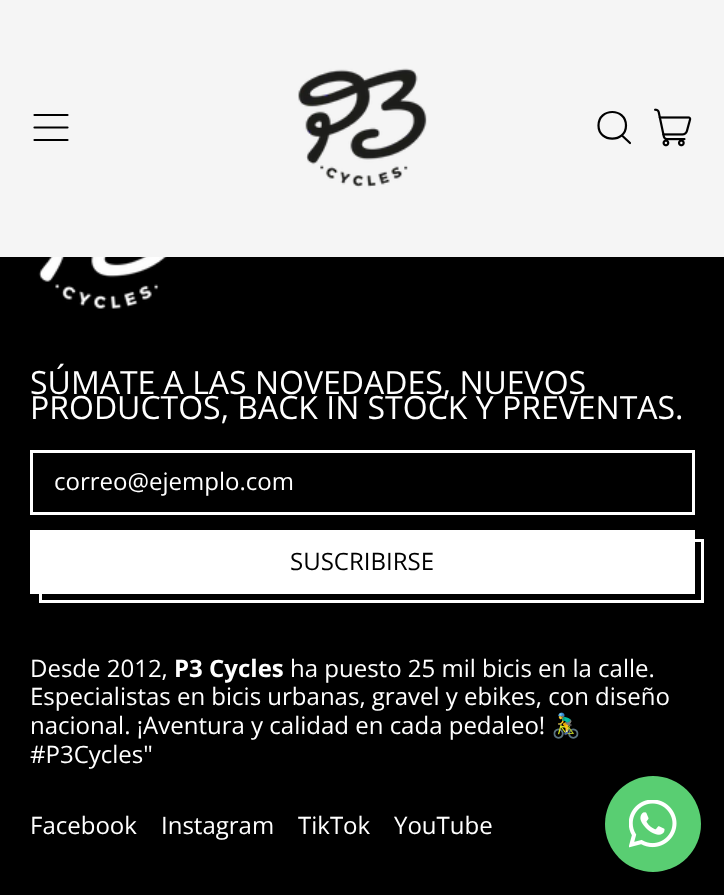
(async () => {
  const canvas = document.querySelector("canvas");
  canvas.width = 724;
  canvas.height = 895;
  const ctx = canvas.getContext("2d");
  ctx.miterLimit = 4;
  ctx.fontKerning = "normal";
  async function loadImage(src) {
    const img = new Image();
    img.src = src;
    await img.decode();
    return img;
  }
  let path;

  ctx.fillStyle = "#000000";
  ctx.fillRect(0, 0, 724, 895);
  ctx.fillStyle = "#f5f5f5";
  ctx.fillRect(0, 0, 724, 257);
  path = new Path2D("M67.5 140H34.5M67.5 127.5H34.5M67.5 115H34.5");
  ctx.strokeStyle = "#000000";
  ctx.lineWidth = 2.2;
  ctx.lineCap = "round";
  ctx.lineJoin = "round";
  ctx.stroke(path);
  ctx.drawImage(await loadImage("img/1.png"), 298, 68, 129, 120);
  path = new Path2D("M598.5 125.5C598.5 143 626 143 626 125.5C626 107.5 598.5 107.5 598.5 125.5ZM630 143L622 135.5");
  ctx.stroke(path);
  ctx.drawImage(await loadImage("img/2.png"), 654, 108, 38, 39);
  ctx.drawImage(await loadImage("img/3.png"), 38, 257, 129, 52);
  ctx.strokeStyle = "#ffffff";
  ctx.lineWidth = 3;
  ctx.lineJoin = "miter";
  ctx.strokeRect(31.5, 451.5, 662, 62);
  ctx.strokeRect(40.5, 540.5, 662, 61);
  ctx.fillStyle = "#ffffff";
  ctx.fillRect(30, 530, 665, 64);
  ctx.fillStyle = "#59ce72";
  ctx.beginPath();
  ctx.arc(653, 824, 48, 0, Math.PI * 2);
  ctx.fill();
  ctx.drawImage(await loadImage("img/4.png"), 629, 800, 48, 48);
  ctx.font = "32px Open Sans";
  ctx.fillStyle = "#ffffff";
  ctx.fillText("SÚMATE A LAS NOVEDADES, NUEVOS", 30, 394);
  ctx.fillText("PRODUCTOS, BACK IN STOCK Y PREVENTAS.", 30, 419);
  ctx.font = "24px Open Sans";
  ctx.fillText("correo@ejemplo.com", 54, 490);
  ctx.fillStyle = "#000000";
  ctx.fillText("SUSCRIBIRSE", 290, 570);
  ctx.fillStyle = "#ffffff";
  ctx.fillText("Desde 2012,", 30, 677);
  ctx.font = "bold 24px Open Sans";
  ctx.fillText("P3 Cycles", 174, 677);
  ctx.font = "24px Open Sans";
  for (const [text, x, y] of [
    ["ha puesto 25 mil bicis en la calle.", 290, 677],
    ["Especialistas en bicis urbanas, gravel y ebikes, con diseño", 30, 705],
    ["nacional. ¡Aventura y calidad en cada pedaleo!", 30, 734],
  ]) {
    ctx.fillText(text, x, y);
  }
  ctx.font = "24px Noto Color Emoji";
  ctx.fillText("🚴‍♂️", 551, 734);
  ctx.font = "24px Open Sans";
  for (const [text, x, y] of [
    ["#P3Cycles\"", 30, 763],
    ["Facebook", 30, 834],
    ["Instagram", 161, 834],
    ["TikTok", 298, 834],
    ["YouTube", 394, 834],
  ]) {
    ctx.fillText(text, x, y);
  }
})();
